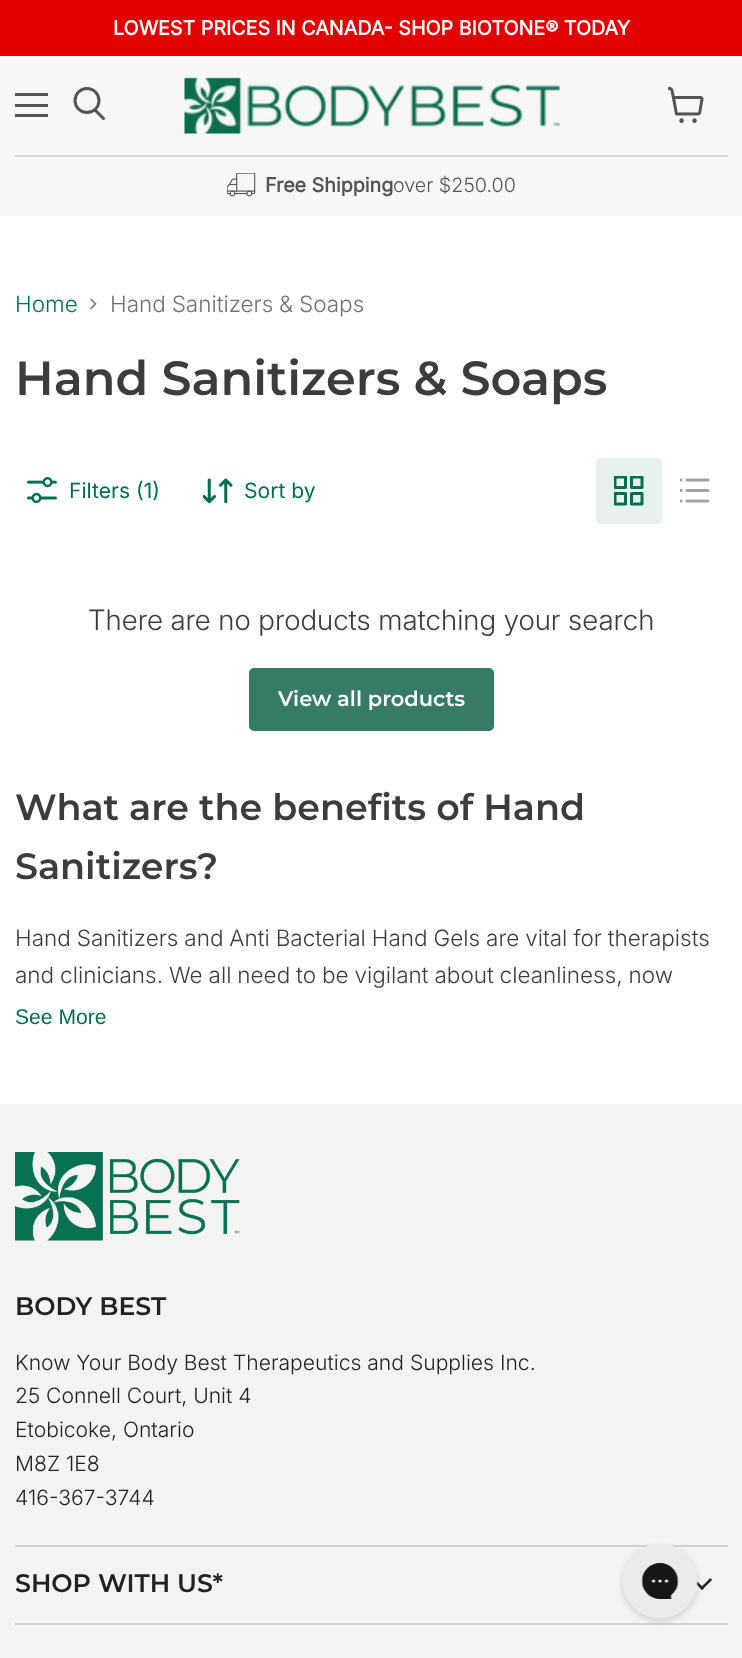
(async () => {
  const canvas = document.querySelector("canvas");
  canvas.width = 742;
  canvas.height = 1658;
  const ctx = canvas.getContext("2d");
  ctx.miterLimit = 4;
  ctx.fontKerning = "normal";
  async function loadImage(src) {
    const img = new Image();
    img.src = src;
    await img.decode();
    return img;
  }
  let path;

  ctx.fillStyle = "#ffffff";
  ctx.fillRect(0, 0, 742, 1658);
  for (const [x, y, w, h, color] of [
    [0, 0, 742, 56, "#e30000"],
    [0, 56, 742, 160, "#f7f7f6"],
    [15, 93, 33, 3, "#565450"],
    [15, 104, 33, 3, "#565450"],
    [15, 114, 33, 3, "#565450"],
  ]) {
    ctx.fillStyle = color;
    ctx.fillRect(x, y, w, h);
  }
  path = new Path2D("M103.5 118.5L95 110");
  ctx.strokeStyle = "#565450";
  ctx.lineWidth = 3;
  ctx.lineCap = "round";
  ctx.stroke(path);
  ctx.beginPath();
  ctx.arc(87, 100.5, 12, 0, Math.PI * 2);
  ctx.stroke();
  ctx.drawImage(await loadImage("img/1.png"), 668, 87, 36, 36);
  ctx.drawImage(await loadImage("img/2.png"), 184, 77, 376, 57);
  ctx.fillStyle = "#d7d6d5";
  ctx.fillRect(15, 155, 713, 2);
  ctx.drawImage(await loadImage("img/3.png"), 227, 173, 29, 24);
  ctx.drawImage(await loadImage("img/4.png"), 90, 298, 7, 12);
  ctx.drawImage(await loadImage("img/5.png"), 27, 477, 30, 27);
  ctx.drawImage(await loadImage("img/6.png"), 203, 478, 30, 26);
  ctx.fillStyle = "#e6f1ee";
  ctx.beginPath();
  ctx.roundRect(596, 458, 66, 66, 5);
  ctx.fill();
  ctx.drawImage(await loadImage("img/7.png"), 614, 476, 30, 30);
  ctx.drawImage(await loadImage("img/8.png"), 680, 478, 30, 25);
  ctx.fillStyle = "#357b65";
  ctx.beginPath();
  ctx.roundRect(250, 669, 243, 61, 4);
  ctx.fill();
  ctx.strokeStyle = "#357b65";
  ctx.lineWidth = 2;
  ctx.stroke();
  ctx.fillStyle = "#f3f3f1";
  ctx.fillRect(0, 1104, 742, 554);
  ctx.drawImage(await loadImage("img/9.png"), 15, 1152, 225, 89);
  ctx.fillStyle = "#d3d4d2";
  ctx.fillRect(15, 1545, 713, 2);
  ctx.fillRect(15, 1623, 713, 2);
  ctx.drawImage(await loadImage("img/10.png"), 696, 1578, 16, 12);
  ctx.drawImage(await loadImage("img/11.png"), 619, 1543, 82, 82);
  ctx.font = "bold 19.7px Inter";
  ctx.fillStyle = "#ffffff";
  ctx.fillText("LOWEST PRICES IN CANADA- SHOP BIOTONE® TODAY", 113, 35);
  ctx.fillStyle = "#565450";
  ctx.fillText("Free Shipping", 265, 192);
  ctx.font = "300 19.7px Inter";
  ctx.fillText("over $250.00", 393, 192);
  ctx.font = "300 22.5px Inter";
  ctx.fillStyle = "#006e51";
  ctx.fillText("Home", 15, 312);
  ctx.wordSpacing = "-0.5px";
  ctx.fillStyle = "#6d7175";
  ctx.fillText("Hand Sanitizers & Soaps", 110, 312);
  ctx.wordSpacing = "0px";
  ctx.font = "600 47.75px Montserrat";
  ctx.fillStyle = "#3d3c3a";
  ctx.fillText("Hand Sanitizers & Soaps", 15, 395);
  ctx.font = "21.1px Inter";
  ctx.fillStyle = "#006e51";
  ctx.fillText("Filters (1)", 69, 498);
  ctx.fillText("Sort by", 244, 498);
  ctx.font = "300 28.1px 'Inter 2'";
  ctx.fillStyle = "#3d3c3a";
  ctx.fillText("There are no products matching your search", 88, 630);
  ctx.font = "600 21px Montserrat";
  ctx.fillStyle = "#ffffff";
  ctx.fillText("View all products", 278, 706);
  ctx.font = "600 36.5px Montserrat";
  ctx.fillStyle = "#3d3c3a";
  ctx.fillText("What are the benefits of Hand", 15, 820);
  ctx.fillText("Sanitizers?", 15, 879);
  ctx.wordSpacing = "-0.4px";
  ctx.font = "300 22.5px Inter";
  ctx.fillText("Hand Sanitizers and Anti Bacterial Hand Gels are vital for therapists", 15, 946);
  ctx.fillText("and clinicians. We all need to be vigilant about cleanliness, now", 15, 983);
  ctx.wordSpacing = "0px";
  ctx.font = "21.1px Liberation Sans";
  ctx.fillStyle = "#006e51";
  ctx.fillText("See More", 15, 1024);
  ctx.font = "600 25.25px Montserrat";
  ctx.fillStyle = "#202223";
  ctx.fillText("BODY BEST", 15, 1315);
  ctx.font = "300 21.1px Inter";
  for (const [text, x, y] of [
    ["Know Your Body Best Therapeutics and Supplies Inc.", 15, 1370],
    ["25 Connell Court, Unit 4", 15, 1403],
    ["Etobicoke, Ontario", 15, 1437],
    ["M8Z 1E8", 15, 1471],
    ["416-367-3744", 15, 1505],
  ]) {
    ctx.fillText(text, x, y);
  }
  ctx.font = "600 25.25px Montserrat";
  ctx.fillText("SHOP WITH US*", 15, 1592);
})();
